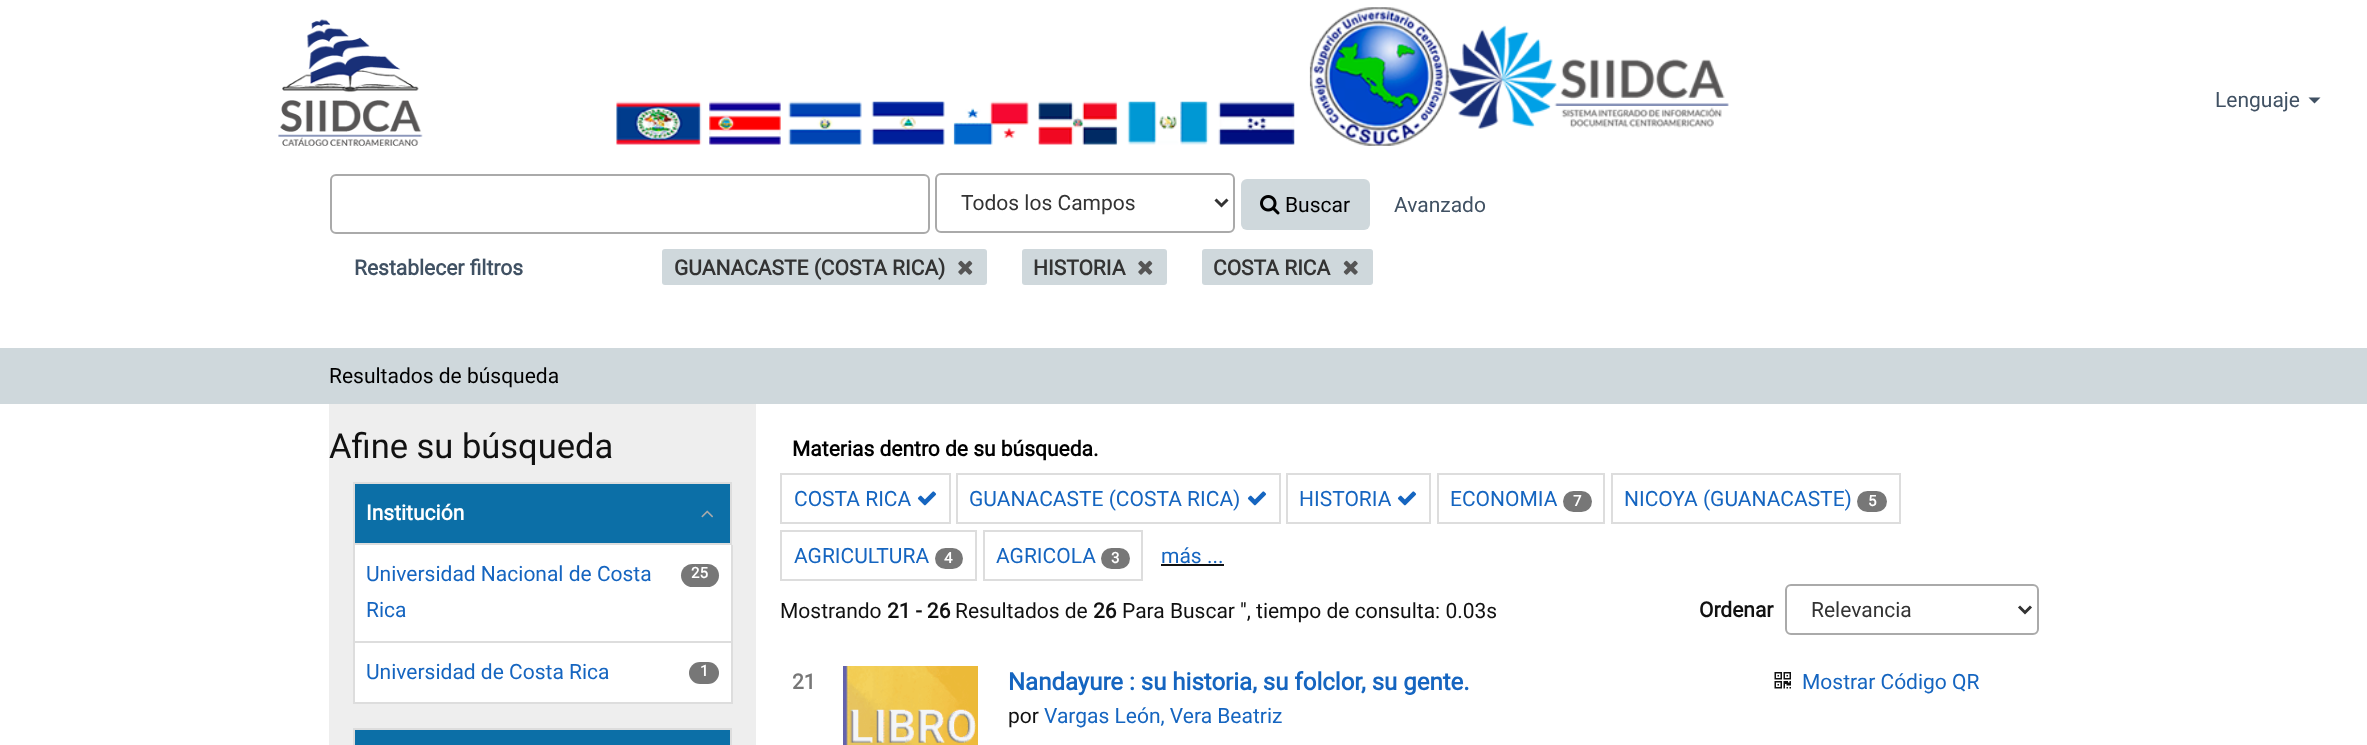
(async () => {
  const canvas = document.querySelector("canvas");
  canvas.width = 2367;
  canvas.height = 745;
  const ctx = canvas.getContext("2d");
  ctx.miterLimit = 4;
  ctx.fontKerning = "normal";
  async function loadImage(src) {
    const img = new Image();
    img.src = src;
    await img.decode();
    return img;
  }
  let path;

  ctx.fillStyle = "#ffffff";
  ctx.fillRect(0, 0, 2367, 745);
  ctx.drawImage(await loadImage("img/1.png"), 278, 19, 145, 127);
  ctx.drawImage(await loadImage("img/2.png"), 616, 7, 1113, 139);
  ctx.fillStyle = "#405163";
  path = new Path2D("M2308.5 97.5H2320.5L2314.5 103.5Z");
  ctx.fill(path);
  ctx.beginPath();
  ctx.roundRect(331, 175, 598, 58, 5);
  ctx.strokeStyle = "#aaaaaa";
  ctx.lineWidth = 2;
  ctx.stroke();
  ctx.beginPath();
  ctx.roundRect(936, 174, 298, 58, 5);
  ctx.stroke();
  path = new Path2D("M1215.5 199.5L1221.5 205.5L1227.5 199.5");
  ctx.strokeStyle = "#333333";
  ctx.lineWidth = 3;
  ctx.stroke(path);
  ctx.fillStyle = "#cfd8dc";
  ctx.beginPath();
  ctx.roundRect(1241, 179, 129, 51, 6);
  ctx.fill();
  ctx.drawImage(await loadImage("img/3.png"), 1260, 195, 20, 20);
  ctx.beginPath();
  ctx.roundRect(662, 249, 325, 36, 3);
  ctx.fill();
  ctx.drawImage(await loadImage("img/4.png"), 958, 260, 15, 15);
  ctx.beginPath();
  ctx.roundRect(1022, 249, 145, 36, 3);
  ctx.fill();
  ctx.drawImage(await loadImage("img/4.png"), 1138, 260, 15, 15);
  ctx.beginPath();
  ctx.roundRect(1202, 249, 171, 36, 3);
  ctx.fill();
  ctx.drawImage(await loadImage("img/5.png"), 1343, 260, 15, 15);
  for (const [x, y, w, h, color] of [
    [0, 348, 2367, 56, "#cfd8dc"],
    [329, 404, 427, 341, "#eeeeee"],
    [355, 545, 376, 157, "#ffffff"],
  ]) {
    ctx.fillStyle = color;
    ctx.fillRect(x, y, w, h);
  }
  ctx.fillStyle = "#0c6fa7";
  ctx.beginPath();
  ctx.rect(354, 483, 377, 61);
  ctx.fill();
  ctx.strokeStyle = "#dddddd";
  ctx.lineWidth = 2;
  ctx.stroke();
  ctx.drawImage(await loadImage("img/6.png"), 701, 510, 12, 8);
  for (const [x, y, w, h, color] of [
    [731, 545, 2, 159, "#dddddd"],
    [353, 545, 2, 159, "#dddddd"],
    [354, 641, 377, 2, "#dddddd"],
  ]) {
    ctx.fillStyle = color;
    ctx.fillRect(x, y, w, h);
  }
  ctx.fillStyle = "#777777";
  ctx.beginPath();
  ctx.roundRect(681, 564, 38, 23, 11.5);
  ctx.fill();
  ctx.fillStyle = "#dddddd";
  ctx.fillRect(354, 702, 377, 2);
  ctx.fillStyle = "#777777";
  ctx.beginPath();
  ctx.roundRect(689, 662, 30, 22, 11);
  ctx.fill();
  ctx.fillStyle = "#0c6fa7";
  ctx.beginPath();
  ctx.rect(354, 729, 377, 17);
  ctx.fill();
  ctx.stroke();
  ctx.strokeRect(781, 474, 169, 49);
  ctx.drawImage(await loadImage("img/7.png"), 917, 491, 20, 15);
  ctx.strokeRect(957, 474, 323, 49);
  ctx.drawImage(await loadImage("img/7.png"), 1247, 491, 20, 15);
  ctx.strokeRect(1287, 474, 143, 49);
  ctx.drawImage(await loadImage("img/7.png"), 1397, 491, 20, 15);
  ctx.strokeRect(1438, 474, 166, 49);
  ctx.fillStyle = "#777777";
  ctx.beginPath();
  ctx.roundRect(1563, 491, 29, 21, 10.5);
  ctx.fill();
  ctx.strokeRect(1612, 474, 288, 49);
  ctx.beginPath();
  ctx.roundRect(1857, 491, 30, 21, 10.5);
  ctx.fill();
  ctx.strokeRect(781, 531, 195, 49);
  ctx.beginPath();
  ctx.roundRect(935, 548, 28, 21, 10.5);
  ctx.fill();
  ctx.strokeRect(984, 531, 158, 49);
  ctx.beginPath();
  ctx.roundRect(1101, 548, 29, 21, 10.5);
  ctx.fill();
  ctx.fillStyle = "#111111";
  ctx.fillRect(1161, 564, 63, 2);
  ctx.beginPath();
  ctx.roundRect(1786, 585, 252, 49, 5);
  ctx.strokeStyle = "#aaaaaa";
  ctx.stroke();
  path = new Path2D("M2019 606.5L2025 612.5L2031 606.5");
  ctx.strokeStyle = "#333333";
  ctx.lineWidth = 3;
  ctx.stroke(path);
  ctx.drawImage(await loadImage("img/8.png"), 843, 666, 135, 79);
  ctx.drawImage(await loadImage("img/9.png"), 1774, 672, 17, 17);
  ctx.font = "21px Roboto";
  ctx.fillStyle = "#405163";
  ctx.fillText("Lenguaje", 2215, 107);
  ctx.fillStyle = "#333333";
  ctx.fillText("Todos los Campos", 961, 210);
  ctx.fillStyle = "#000000";
  ctx.fillText("Buscar", 1285, 212);
  ctx.fillStyle = "#405163";
  ctx.fillText("Avanzado", 1394, 212);
  ctx.font = "bold 21px Roboto";
  ctx.fillText("Restablecer filtros", 354, 275);
  ctx.fillStyle = "#333333";
  for (const [text, x, y] of [
    ["GUANACASTE (COSTA RICA)", 674, 275],
    ["HISTORIA", 1033, 275],
    ["COSTA RICA", 1213, 275],
  ]) {
    ctx.fillText(text, x, y);
  }
  ctx.font = "21px Roboto";
  ctx.fillStyle = "#000000";
  ctx.fillText("Resultados de búsqueda", 329, 383);
  ctx.font = "34.5px Roboto";
  ctx.fillStyle = "#111111";
  ctx.fillText("Afine su búsqueda", 329, 458);
  ctx.font = "bold 21px Roboto";
  ctx.fillStyle = "#ffffff";
  ctx.fillText("Institución", 366, 520);
  ctx.font = "21px Roboto";
  ctx.fillStyle = "#1565c0";
  ctx.fillText("Universidad Nacional de Costa", 366, 581);
  ctx.fillText("Rica", 366, 617);
  ctx.font = "bold 15px Roboto";
  ctx.fillStyle = "#ffffff";
  ctx.fillText("25", 691, 578);
  ctx.font = "21px Roboto";
  ctx.fillStyle = "#1565c0";
  ctx.fillText("Universidad de Costa Rica", 366, 679);
  ctx.font = "bold 15px Roboto";
  ctx.fillStyle = "#ffffff";
  ctx.fillText("1", 700, 676);
  ctx.font = "bold 21px Roboto";
  ctx.fillStyle = "#000000";
  ctx.fillText("Materias dentro de su búsqueda.", 792, 456);
  ctx.font = "21px Roboto";
  ctx.fillStyle = "#1565c0";
  for (const [text, x, y] of [
    ["COSTA RICA", 794, 506],
    ["GUANACASTE (COSTA RICA)", 969, 506],
    ["HISTORIA", 1299, 506],
    ["ECONOMIA", 1450, 506],
  ]) {
    ctx.fillText(text, x, y);
  }
  ctx.font = "bold 15px Roboto";
  ctx.fillStyle = "#ffffff";
  ctx.fillText("7", 1573, 506);
  ctx.font = "21px Roboto";
  ctx.fillStyle = "#1565c0";
  ctx.fillText("NICOYA (GUANACASTE)", 1624, 506);
  ctx.font = "bold 15px Roboto";
  ctx.fillStyle = "#ffffff";
  ctx.fillText("5", 1868, 506);
  ctx.font = "21px Roboto";
  ctx.fillStyle = "#1565c0";
  ctx.fillText("AGRICULTURA", 794, 563);
  ctx.font = "bold 15px Roboto";
  ctx.fillStyle = "#ffffff";
  ctx.fillText("4", 944, 563);
  ctx.font = "21px Roboto";
  ctx.fillStyle = "#1565c0";
  ctx.fillText("AGRICOLA", 996, 563);
  ctx.font = "bold 15px Roboto";
  ctx.fillStyle = "#ffffff";
  ctx.fillText("3", 1111, 563);
  ctx.font = "21px Roboto";
  ctx.fillStyle = "#1565c0";
  ctx.fillText("más ...", 1161, 563);
  ctx.fillStyle = "#111111";
  ctx.fillText("Mostrando", 780, 618);
  ctx.font = "bold 21px Roboto";
  ctx.fillText("21 - 26", 887, 618);
  ctx.font = "21px Roboto";
  ctx.fillText("Resultados de", 955, 618);
  ctx.font = "bold 21px Roboto";
  ctx.fillText("26", 1093, 618);
  ctx.font = "21px Roboto";
  ctx.fillText("Para Buscar '", 1122, 618);
  ctx.fillText("', tiempo de consulta: 0.03s", 1243, 618);
  ctx.font = "bold 21px Roboto";
  ctx.fillText("Ordenar", 1699, 617);
  ctx.font = "21px Roboto";
  ctx.fillStyle = "#333333";
  ctx.fillText("Relevancia", 1811, 617);
  ctx.font = "bold 21px Roboto";
  ctx.fillStyle = "#777777";
  ctx.fillText("21", 792, 689);
  ctx.font = "bold 24px Roboto";
  ctx.fillStyle = "#1565c0";
  ctx.fillText("Nandayure : su historia, su folclor, su gente.", 1008, 690);
  ctx.font = "21px Roboto";
  ctx.fillStyle = "#111111";
  ctx.fillText("por", 1008, 723);
  ctx.fillStyle = "#1565c0";
  ctx.fillText("Vargas León, Vera Beatriz", 1044, 723);
  ctx.fillText("Mostrar Código QR", 1802, 689);
})();
